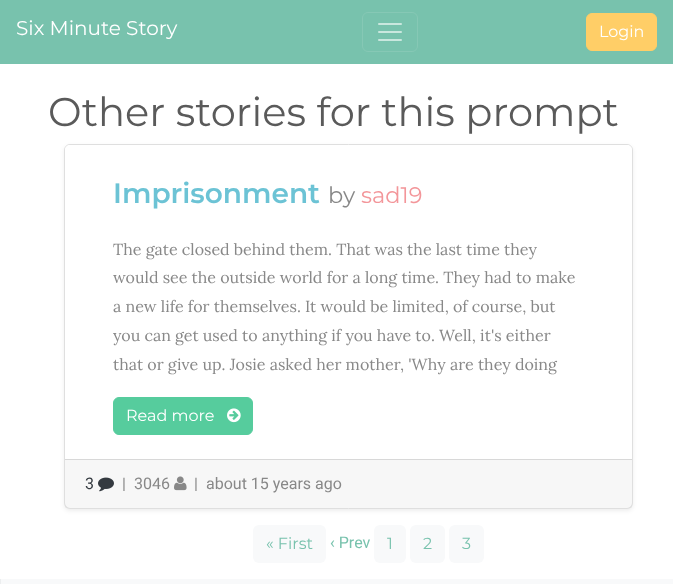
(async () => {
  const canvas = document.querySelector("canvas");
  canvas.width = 673;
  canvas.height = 584;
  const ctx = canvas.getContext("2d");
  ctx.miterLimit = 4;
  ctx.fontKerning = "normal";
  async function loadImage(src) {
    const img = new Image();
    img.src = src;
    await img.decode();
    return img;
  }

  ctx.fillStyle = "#ffffff";
  ctx.fillRect(0, 0, 673, 584);
  ctx.fillStyle = "#78c2ad";
  ctx.fillRect(0, 0, 673, 64);
  ctx.beginPath();
  ctx.roundRect(362.5, 12.5, 55, 39, 5.5);
  ctx.strokeStyle = "#86c8b5";
  ctx.stroke();
  ctx.drawImage(await loadImage("img/1.png"), 378, 23, 24, 18);
  ctx.fillStyle = "#ffce67";
  ctx.beginPath();
  ctx.roundRect(586.5, 13.5, 70, 37, 5.5);
  ctx.fill();
  ctx.strokeStyle = "#ffce67";
  ctx.stroke();
  ctx.fillStyle = "rgba(0, 0, 0, 0.07)";
  ctx.filter = "blur(2px)";
  ctx.beginPath();
  ctx.roundRect(64, 146, 569, 365, 6);
  ctx.fill();
  ctx.filter = "none";
  ctx.fillStyle = "#ffffff";
  ctx.beginPath();
  ctx.roundRect(64.5, 144.5, 568, 364, 5.5);
  ctx.fill();
  ctx.strokeStyle = "#dfdfdf";
  ctx.stroke();
  ctx.beginPath();
  ctx.roundRect(65, 145, 567, 74, [5, 5, 0, 0]);
  ctx.fill();
  ctx.fillStyle = "#56cc9d";
  ctx.beginPath();
  ctx.roundRect(113.5, 397.5, 139, 37, 5.5);
  ctx.fill();
  ctx.strokeStyle = "#56cc9d";
  ctx.stroke();
  ctx.drawImage(await loadImage("img/2.png"), 227, 408, 14, 15);
  ctx.fillStyle = "rgba(0, 0, 0, 0.03)";
  ctx.fillRect(65, 460, 567, 48);
  ctx.fillStyle = "#d8d8d8";
  ctx.fillRect(65, 459, 567, 1);
  ctx.drawImage(await loadImage("img/3.png"), 98, 477, 16, 15);
  ctx.drawImage(await loadImage("img/4.png"), 174, 476, 13, 15);
  ctx.fillStyle = "#f8f9fa";
  ctx.beginPath();
  ctx.roundRect(253, 525, 73, 38, 6);
  ctx.fill();
  ctx.beginPath();
  ctx.roundRect(374, 525, 32, 38, 6);
  ctx.fill();
  ctx.beginPath();
  ctx.roundRect(410, 525, 35, 38, 6);
  ctx.fill();
  ctx.beginPath();
  ctx.roundRect(449, 525, 35, 38, 6);
  ctx.fill();
  ctx.fillRect(0, 579, 673, 5);
  ctx.fillStyle = "#eceeef";
  ctx.fillRect(0, 579, 1, 5);
  ctx.font = "20px Montserrat";
  ctx.fillStyle = "#ffffff";
  ctx.fillText("Six Minute Story", 16, 35);
  ctx.font = "16px Montserrat";
  ctx.fillText("Login", 599, 37);
  ctx.font = "40px Montserrat";
  ctx.fillStyle = "#5a5a5a";
  ctx.fillText("Other stories for this prompt", 48, 126);
  ctx.font = "600 28px Montserrat";
  ctx.fillStyle = "#6cc3d5";
  ctx.fillText("Imprisonment", 113, 203);
  ctx.font = "22.5px Montserrat";
  ctx.fillStyle = "#888888";
  ctx.fillText("by", 328, 203);
  ctx.fillStyle = "#f3969a";
  ctx.fillText("sad19", 361, 203);
  ctx.font = "16px Lora";
  ctx.fillStyle = "#888888";
  for (const [text, x, y] of [
    ["The gate closed behind them. That was the last time they", 113, 255],
    ["would see the outside world for a long time. They had to make", 113, 283],
    ["a new life for themselves. It would be limited, of course, but", 113, 312],
    ["you can get used to anything if you have to. Well, it's either", 113, 341],
    ["that or give up. Josie asked her mother, 'Why are they doing", 113, 370],
  ]) {
    ctx.fillText(text, x, y);
  }
  ctx.font = "16px Montserrat";
  ctx.fillStyle = "#ffffff";
  ctx.fillText("Read more", 126, 421);
  ctx.font = "16px Roboto";
  ctx.fillStyle = "#343a40";
  ctx.fillText("3", 85, 489);
  ctx.fillStyle = "#888888";
  for (const [text, x, y] of [
    ["|", 122, 489],
    ["3046", 134, 489],
    ["|", 194, 489],
    ["about 15 years ago", 206, 489],
  ]) {
    ctx.fillText(text, x, y);
  }
  ctx.font = "16px Montserrat";
  ctx.fillStyle = "#78c2ad";
  ctx.fillText("« First", 266, 549);
  ctx.font = "16px Roboto";
  ctx.fillText("‹ Prev", 330, 548);
  ctx.font = "16px Montserrat";
  for (const [text, x, y] of [
    ["1", 387, 549],
    ["2", 423, 549],
    ["3", 462, 549],
  ]) {
    ctx.fillText(text, x, y);
  }
})();
